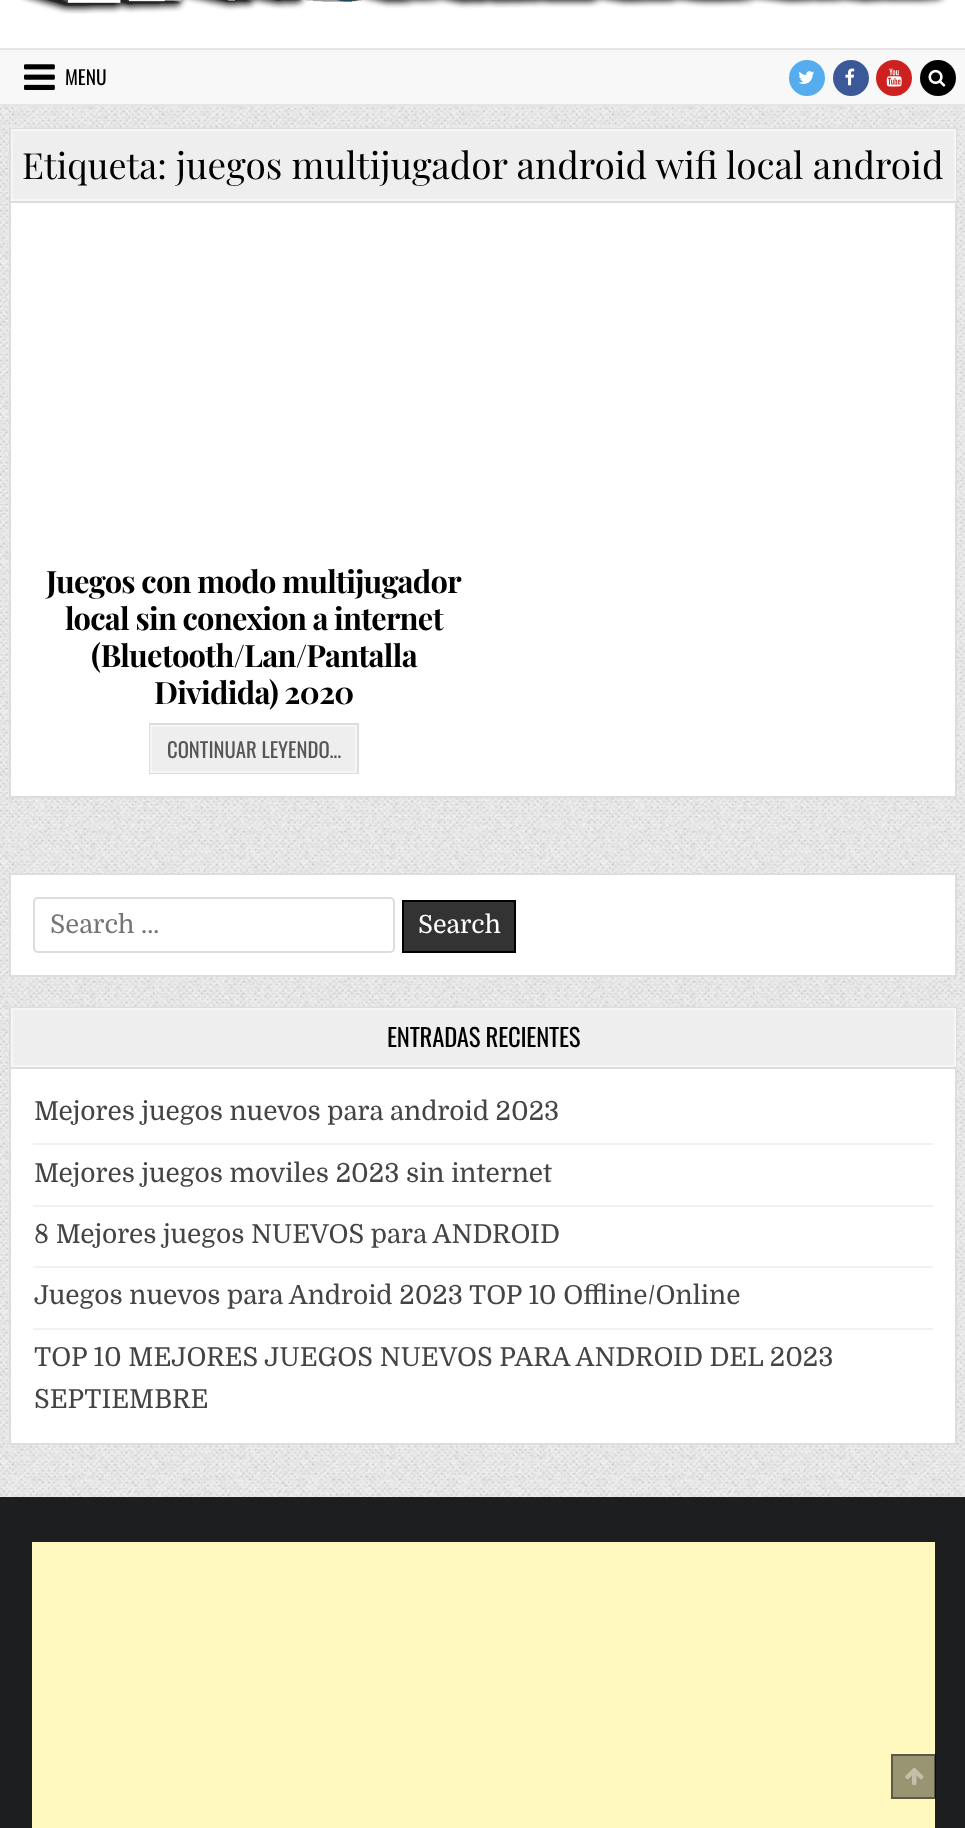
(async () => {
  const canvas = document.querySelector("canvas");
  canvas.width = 965;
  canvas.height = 1828;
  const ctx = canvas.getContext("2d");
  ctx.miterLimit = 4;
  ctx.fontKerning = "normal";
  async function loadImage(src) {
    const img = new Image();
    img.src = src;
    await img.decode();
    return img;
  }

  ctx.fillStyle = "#ffffff";
  ctx.fillRect(0, 0, 965, 1828);
  ctx.drawImage(await loadImage("img/1.png"), 0, 106, 965, 1391);
  ctx.drawImage(await loadImage("img/2.png"), 21, 0, 926, 14);
  for (const [x, y, w, h, color] of [
    [0, 50, 965, 54, "#f8f8f8"],
    [0, 48, 965, 2, "#e5e5e5"],
    [0, 104, 965, 2, "#e5e5e5"],
  ]) {
    ctx.fillStyle = color;
    ctx.fillRect(x, y, w, h);
  }
  ctx.drawImage(await loadImage("img/3.png"), 24, 64, 31, 26);
  ctx.fillStyle = "#55acee";
  ctx.beginPath();
  ctx.arc(807, 78, 18, 0, Math.PI * 2);
  ctx.fill();
  ctx.drawImage(await loadImage("img/4.png"), 798, 71, 17, 13);
  ctx.fillStyle = "#3b5998";
  ctx.beginPath();
  ctx.arc(851, 78, 18, 0, Math.PI * 2);
  ctx.fill();
  ctx.drawImage(await loadImage("img/5.png"), 845, 68, 10, 18);
  ctx.fillStyle = "#cd201f";
  ctx.beginPath();
  ctx.arc(894, 78, 18, 0, Math.PI * 2);
  ctx.fill();
  ctx.drawImage(await loadImage("img/6.png"), 886, 68, 16, 19);
  ctx.fillStyle = "#000000";
  ctx.beginPath();
  ctx.arc(938, 78, 18, 0, Math.PI * 2);
  ctx.fill();
  ctx.drawImage(await loadImage("img/7.png"), 928, 69, 18, 18);
  ctx.fillStyle = "#ffffff";
  ctx.fillRect(11, 203, 944, 593);
  ctx.strokeStyle = "#dddddd";
  ctx.lineWidth = 2;
  ctx.strokeRect(10, 129, 946, 668);
  ctx.fillStyle = "#dddddd";
  ctx.fillRect(11, 201, 945, 2);
  ctx.fillStyle = "#eeeeee";
  ctx.beginPath();
  ctx.rect(12, 130, 943, 70);
  ctx.fill();
  ctx.strokeStyle = "#f6f6f6";
  ctx.stroke();
  ctx.fillRect(152, 727, 203, 44);
  ctx.strokeStyle = "#dddddd";
  ctx.strokeRect(150, 724, 208, 49);
  ctx.strokeStyle = "#f6f6f6";
  ctx.strokeRect(151, 726, 205, 46);
  ctx.fillStyle = "#ffffff";
  ctx.beginPath();
  ctx.rect(10, 874, 946, 102);
  ctx.fill();
  ctx.strokeStyle = "#dddddd";
  ctx.stroke();
  ctx.beginPath();
  ctx.roundRect(34, 898, 360, 54, 4);
  ctx.stroke();
  ctx.fillStyle = "#333333";
  ctx.beginPath();
  ctx.rect(403, 901, 112, 51);
  ctx.fill();
  ctx.strokeStyle = "#000000";
  ctx.stroke();
  ctx.fillStyle = "#ffffff";
  ctx.fillRect(11, 1069, 944, 374);
  ctx.strokeStyle = "#dddddd";
  ctx.strokeRect(10, 1008, 946, 436);
  ctx.fillStyle = "#dddddd";
  ctx.fillRect(11, 1067, 945, 2);
  ctx.fillStyle = "#eeeeee";
  ctx.beginPath();
  ctx.rect(12, 1009, 943, 57);
  ctx.fill();
  ctx.strokeStyle = "#f6f6f6";
  ctx.stroke();
  for (const [x, y, w, h, color] of [
    [33, 1143, 900, 2, "#f1f1f1"],
    [33, 1205, 900, 2, "#f1f1f1"],
    [33, 1266, 900, 2, "#f1f1f1"],
    [33, 1328, 900, 2, "#f1f1f1"],
    [0, 1497, 965, 331, "#1d1e20"],
    [32, 1542, 903, 286, "#fff9c0"],
    [891, 1754, 45, 45, "rgba(0, 0, 0, 0.4)"],
  ]) {
    ctx.fillStyle = color;
    ctx.fillRect(x, y, w, h);
  }
  ctx.strokeStyle = "rgba(0, 0, 0, 0.4)";
  ctx.strokeRect(892, 1755, 43, 43);
  ctx.drawImage(await loadImage("img/8.png"), 905, 1767, 19, 18);
  ctx.font = "19.5px Oswald";
  ctx.fillStyle = "#000000";
  ctx.fillText("MENU", 65, 85);
  ctx.font = "36px Playfair Display";
  ctx.fillText("Etiqueta:", 22, 179);
  ctx.font = "37.1px Playfair Display";
  ctx.fillText("juegos multijugador android wifi local android", 176, 179);
  ctx.letterSpacing = "-0.75px";
  ctx.font = "bold 30.9px Playfair Display";
  for (const [text, x, y] of [
    ["Juegos con modo multijugador", 46, 593],
    ["local sin conexion a internet", 65, 630],
    ["(Bluetooth/Lan/Pantalla", 91, 667],
    ["Dividida) 2020", 154, 704],
  ]) {
    ctx.fillText(text, x, y);
  }
  ctx.letterSpacing = "0px";
  ctx.font = "20.75px Oswald";
  ctx.fillStyle = "#555555";
  ctx.fillText("CONTINUAR LEYENDO...", 167, 758);
  ctx.font = "25.5px Domine";
  ctx.fillStyle = "#757575";
  ctx.fillText("Search …", 50, 933);
  ctx.font = "25px Domine";
  ctx.fillStyle = "#ffffff";
  ctx.fillText("Search", 418, 933);
  ctx.letterSpacing = "-0.25px";
  ctx.font = "24.75px Oswald";
  ctx.fillStyle = "#000000";
  ctx.fillText("ENTRADAS RECIENTES", 387, 1047);
  ctx.letterSpacing = "0px";
  ctx.font = "26.2px Domine";
  ctx.fillStyle = "#444444";
  for (const [text, x, y] of [
    ["Mejores juegos nuevos para android 2023", 34, 1120],
    ["Mejores juegos moviles 2023 sin internet", 34, 1182],
    ["8 Mejores juegos NUEVOS para ANDROID", 34, 1243],
    ["Juegos nuevos para Android 2023 TOP 10 Offline/Online", 34, 1304],
    ["TOP 10 MEJORES JUEGOS NUEVOS PARA ANDROID DEL 2023", 34, 1366],
    ["SEPTIEMBRE", 34, 1408],
  ]) {
    ctx.fillText(text, x, y);
  }
})();
